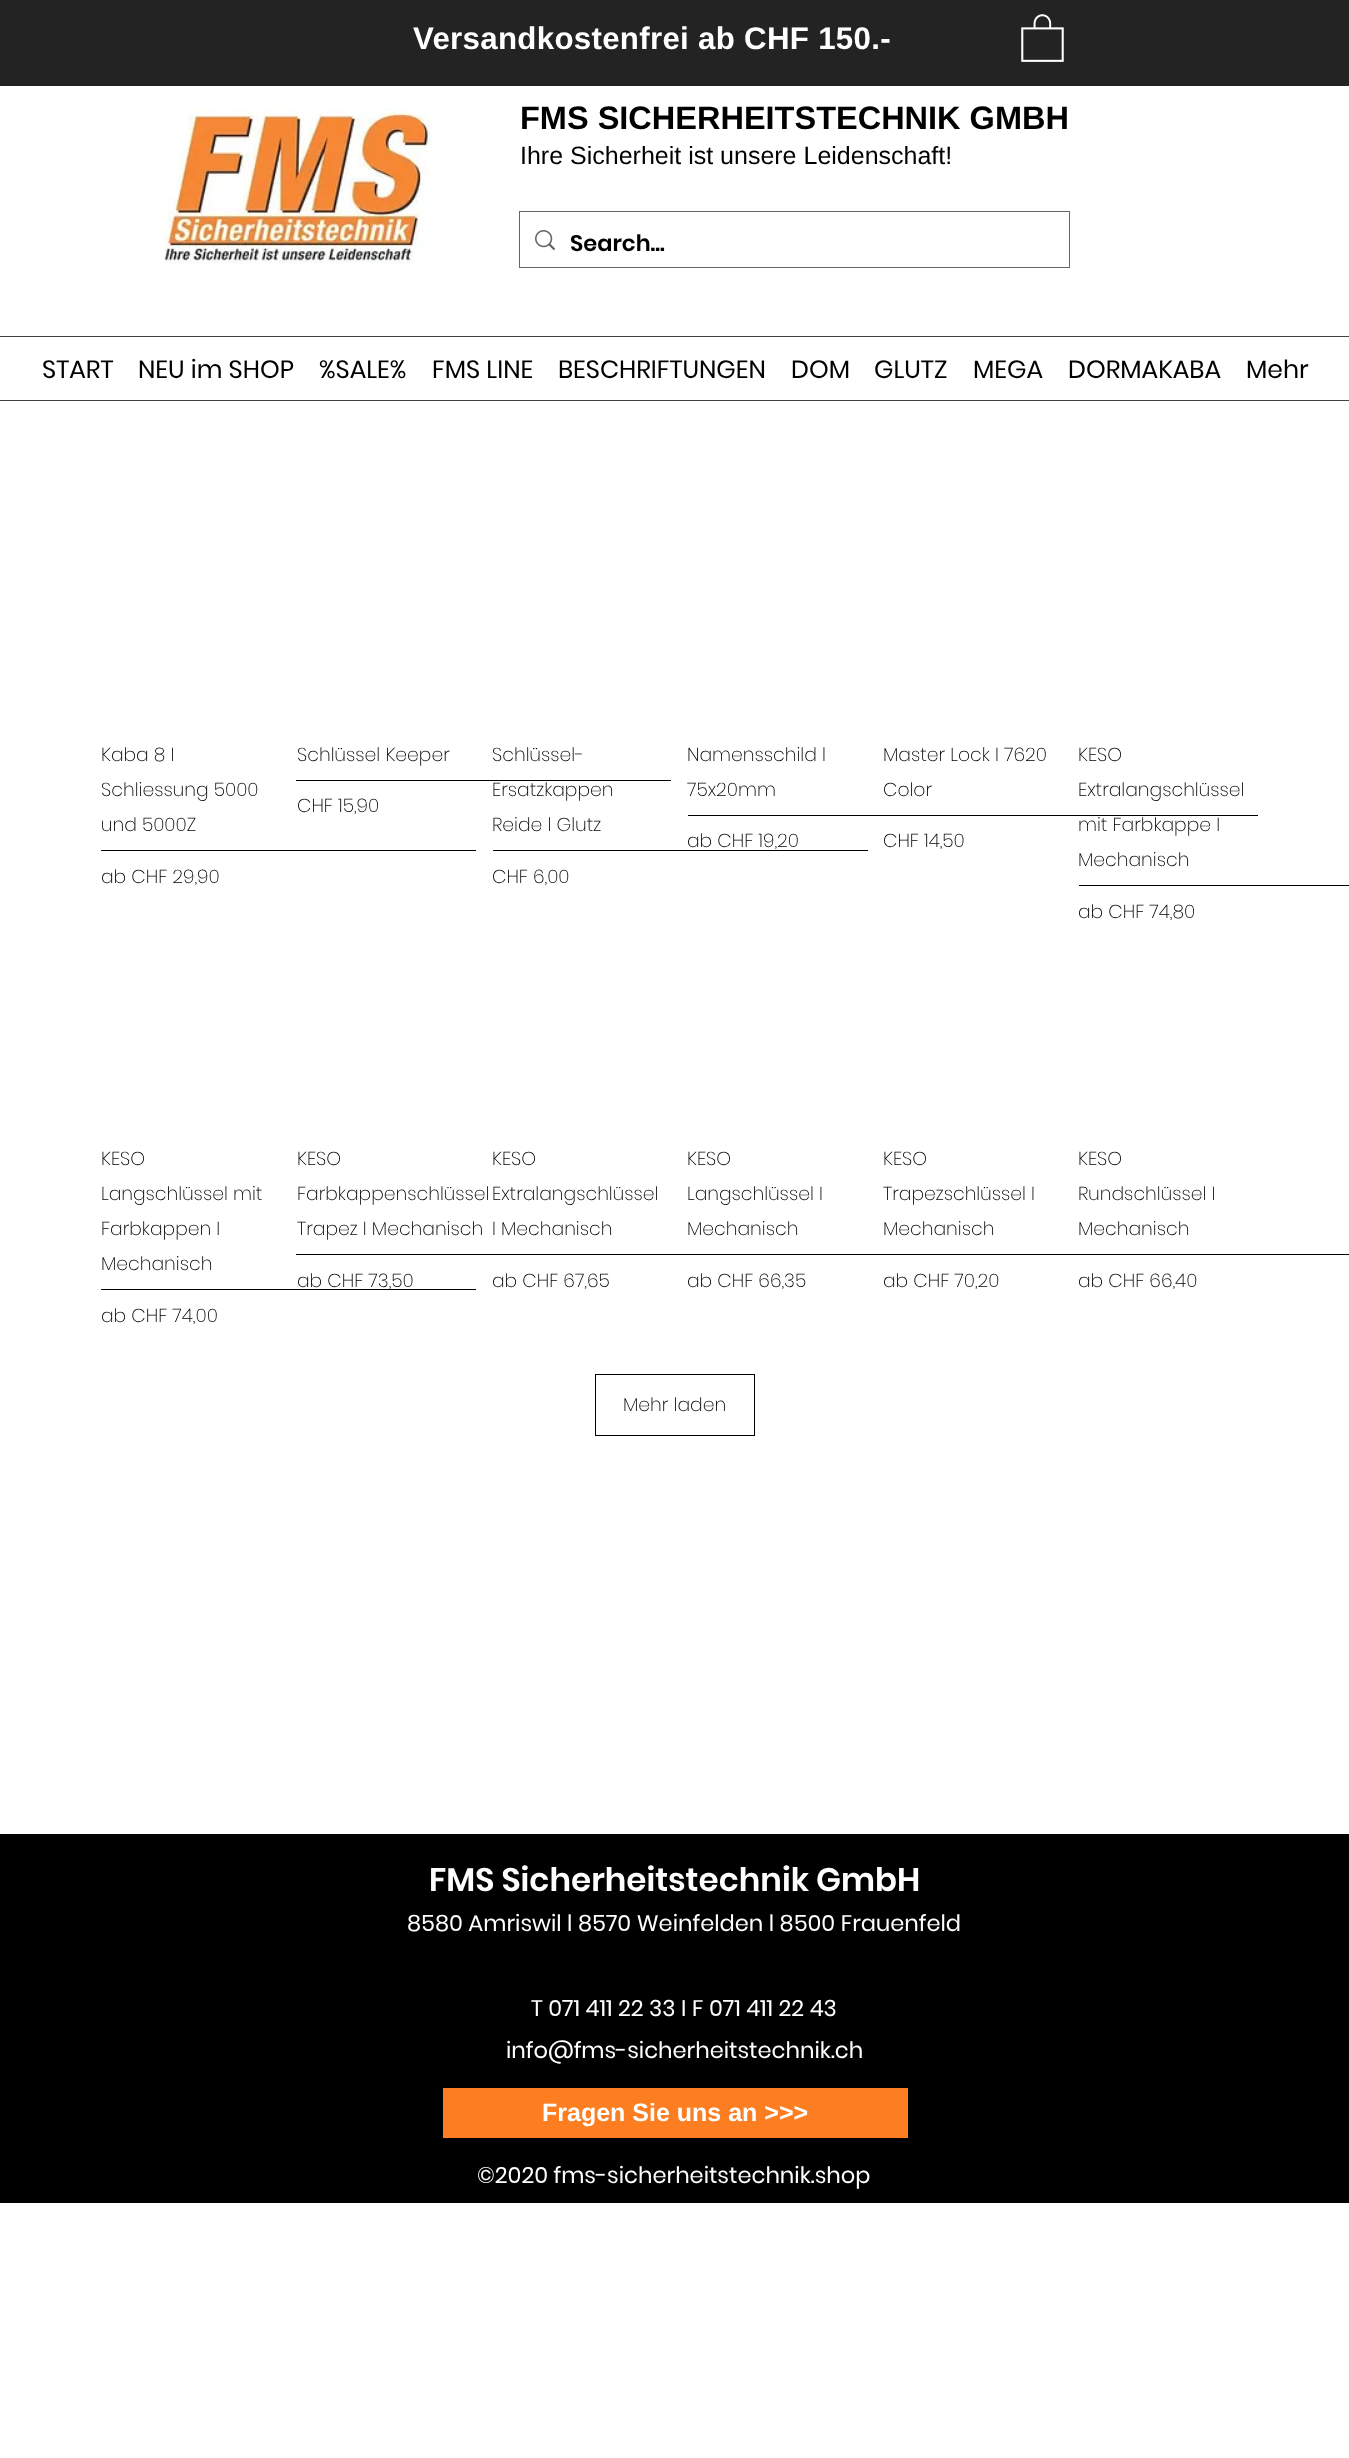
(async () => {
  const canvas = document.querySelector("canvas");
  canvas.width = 1349;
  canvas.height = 2458;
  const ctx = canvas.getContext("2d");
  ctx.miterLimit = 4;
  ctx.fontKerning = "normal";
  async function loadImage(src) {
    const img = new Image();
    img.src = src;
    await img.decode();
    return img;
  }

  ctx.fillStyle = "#ffffff";
  ctx.fillRect(0, 0, 1349, 2458);
  ctx.fillStyle = "#242323";
  ctx.fillRect(0, 0, 1349, 86);
  ctx.drawImage(await loadImage("img/1.png"), 1021, 14, 43, 48);
  ctx.drawImage(await loadImage("img/2.png"), 164, 108, 269, 156);
  ctx.strokeStyle = "#666666";
  ctx.strokeRect(519.5, 211.5, 550, 56);
  ctx.drawImage(await loadImage("img/3.png"), 535, 230, 20, 20);
  for (const [x, y, w, h, color] of [
    [0, 336, 1349, 1, "#424242"],
    [0, 400, 1349, 1, "#424242"],
    [101, 850, 375, 1, "#000000"],
    [296, 780, 375, 1, "#000000"],
    [493, 850, 375, 1, "#000000"],
    [688, 815, 570, 1, "#000000"],
    [1079, 885, 270, 1, "#000000"],
    [101, 1289, 375, 1, "#000000"],
    [296, 1254, 1053, 1, "#000000"],
  ]) {
    ctx.fillStyle = color;
    ctx.fillRect(x, y, w, h);
  }
  ctx.strokeStyle = "#000000";
  ctx.strokeRect(595.5, 1374.5, 159, 61);
  ctx.fillRect(0, 1834, 1349, 369);
  ctx.fillStyle = "#fd7e21";
  ctx.fillRect(443, 2088, 465, 50);
  ctx.letterSpacing = "0.3px";
  ctx.font = "bold 31.25px Liberation Sans";
  ctx.fillStyle = "#ffffff";
  ctx.fillText("Versandkostenfrei ab CHF 150.-", 413, 49);
  ctx.letterSpacing = "0px";
  ctx.font = "bold 32.5px Liberation Sans";
  ctx.fillStyle = "#000000";
  ctx.fillText("FMS SICHERHEITSTECHNIK GMBH", 520, 129);
  ctx.font = "25px Liberation Sans";
  ctx.fillText("Ihre Sicherheit ist unsere Leidenschaft!", 520, 164);
  ctx.font = "600 22.5px Poppins";
  ctx.fillText("Search...", 570, 251);
  ctx.font = "25px Poppins";
  for (const [text, x, y] of [
    ["START", 42, 378],
    ["NEU im SHOP", 138, 378],
    ["%SALE%", 319, 378],
    ["FMS LINE", 432, 378],
    ["BESCHRIFTUNGEN", 558, 378],
    ["DOM", 791, 378],
    ["GLUTZ", 874, 378],
    ["MEGA", 973, 378],
    ["DORMAKABA", 1068, 378],
    ["Mehr", 1246, 378],
  ]) {
    ctx.fillText(text, x, y);
  }
  ctx.font = "200 18.75px Poppins";
  for (const [text, x, y] of [
    ["Kaba 8 I", 101, 761],
    ["Schliessung 5000", 101, 796],
    ["und 5000Z", 101, 831],
    ["ab CHF 29,90", 101, 883],
    ["Schlüssel Keeper", 297, 761],
    ["CHF 15,90", 297, 812],
    ["Schlüssel-", 492, 761],
    ["Ersatzkappen", 492, 796],
    ["Reide l Glutz", 492, 831],
    ["CHF 6,00", 492, 883],
    ["Namensschild l", 687, 761],
    ["75x20mm", 687, 796],
    ["ab CHF 19,20", 687, 847],
    ["Master Lock I 7620", 883, 761],
    ["Color", 883, 796],
    ["CHF 14,50", 883, 847],
    ["KESO", 1078, 761],
    ["Extralangschlüssel", 1078, 796],
    ["mit Farbkappe I", 1078, 831],
    ["Mechanisch", 1078, 866],
    ["ab CHF 74,80", 1078, 918],
    ["KESO", 101, 1165],
    ["Langschlüssel mit", 101, 1200],
    ["Farbkappen I", 101, 1235],
    ["Mechanisch", 101, 1270],
    ["ab CHF 74,00", 101, 1322],
    ["KESO", 297, 1165],
    ["Farbkappenschlüssel", 297, 1200],
    ["Trapez I Mechanisch", 297, 1235],
    ["ab CHF 73,50", 297, 1287],
    ["KESO", 492, 1165],
    ["Extralangschlüssel", 492, 1200],
    ["I Mechanisch", 492, 1235],
    ["ab CHF 67,65", 492, 1287],
    ["KESO", 687, 1165],
    ["Langschlüssel I", 687, 1200],
    ["Mechanisch", 687, 1235],
    ["ab CHF 66,35", 687, 1287],
    ["KESO", 883, 1165],
    ["Trapezschlüssel I", 883, 1200],
    ["Mechanisch", 883, 1235],
    ["ab CHF 70,20", 883, 1287],
    ["KESO", 1078, 1165],
    ["Rundschlüssel I", 1078, 1200],
    ["Mechanisch", 1078, 1235],
    ["ab CHF 66,40", 1078, 1287],
    ["Mehr laden", 623, 1411],
  ]) {
    ctx.fillText(text, x, y);
  }
  ctx.font = "600 32.5px Poppins";
  ctx.fillStyle = "#ffffff";
  ctx.fillText("FMS Sicherheitstechnik GmbH", 429, 1891);
  ctx.font = "22.5px Poppins";
  for (const [text, x, y] of [
    ["8580 Amriswil l 8570 Weinfelden l 8500 Frauenfeld", 407, 1931],
    ["T 071 411 22 33 I F 071 411 22 43", 531, 2016],
    ["info@fms-sicherheitstechnik.ch", 506, 2058],
  ]) {
    ctx.fillText(text, x, y);
  }
  ctx.font = "bold 25px Liberation Sans";
  ctx.fillText("Fragen Sie uns an >>>", 542, 2121);
  ctx.font = "22.5px Poppins";
  ctx.fillText("©2020 fms-sicherheitstechnik.shop", 477, 2183);
})();
